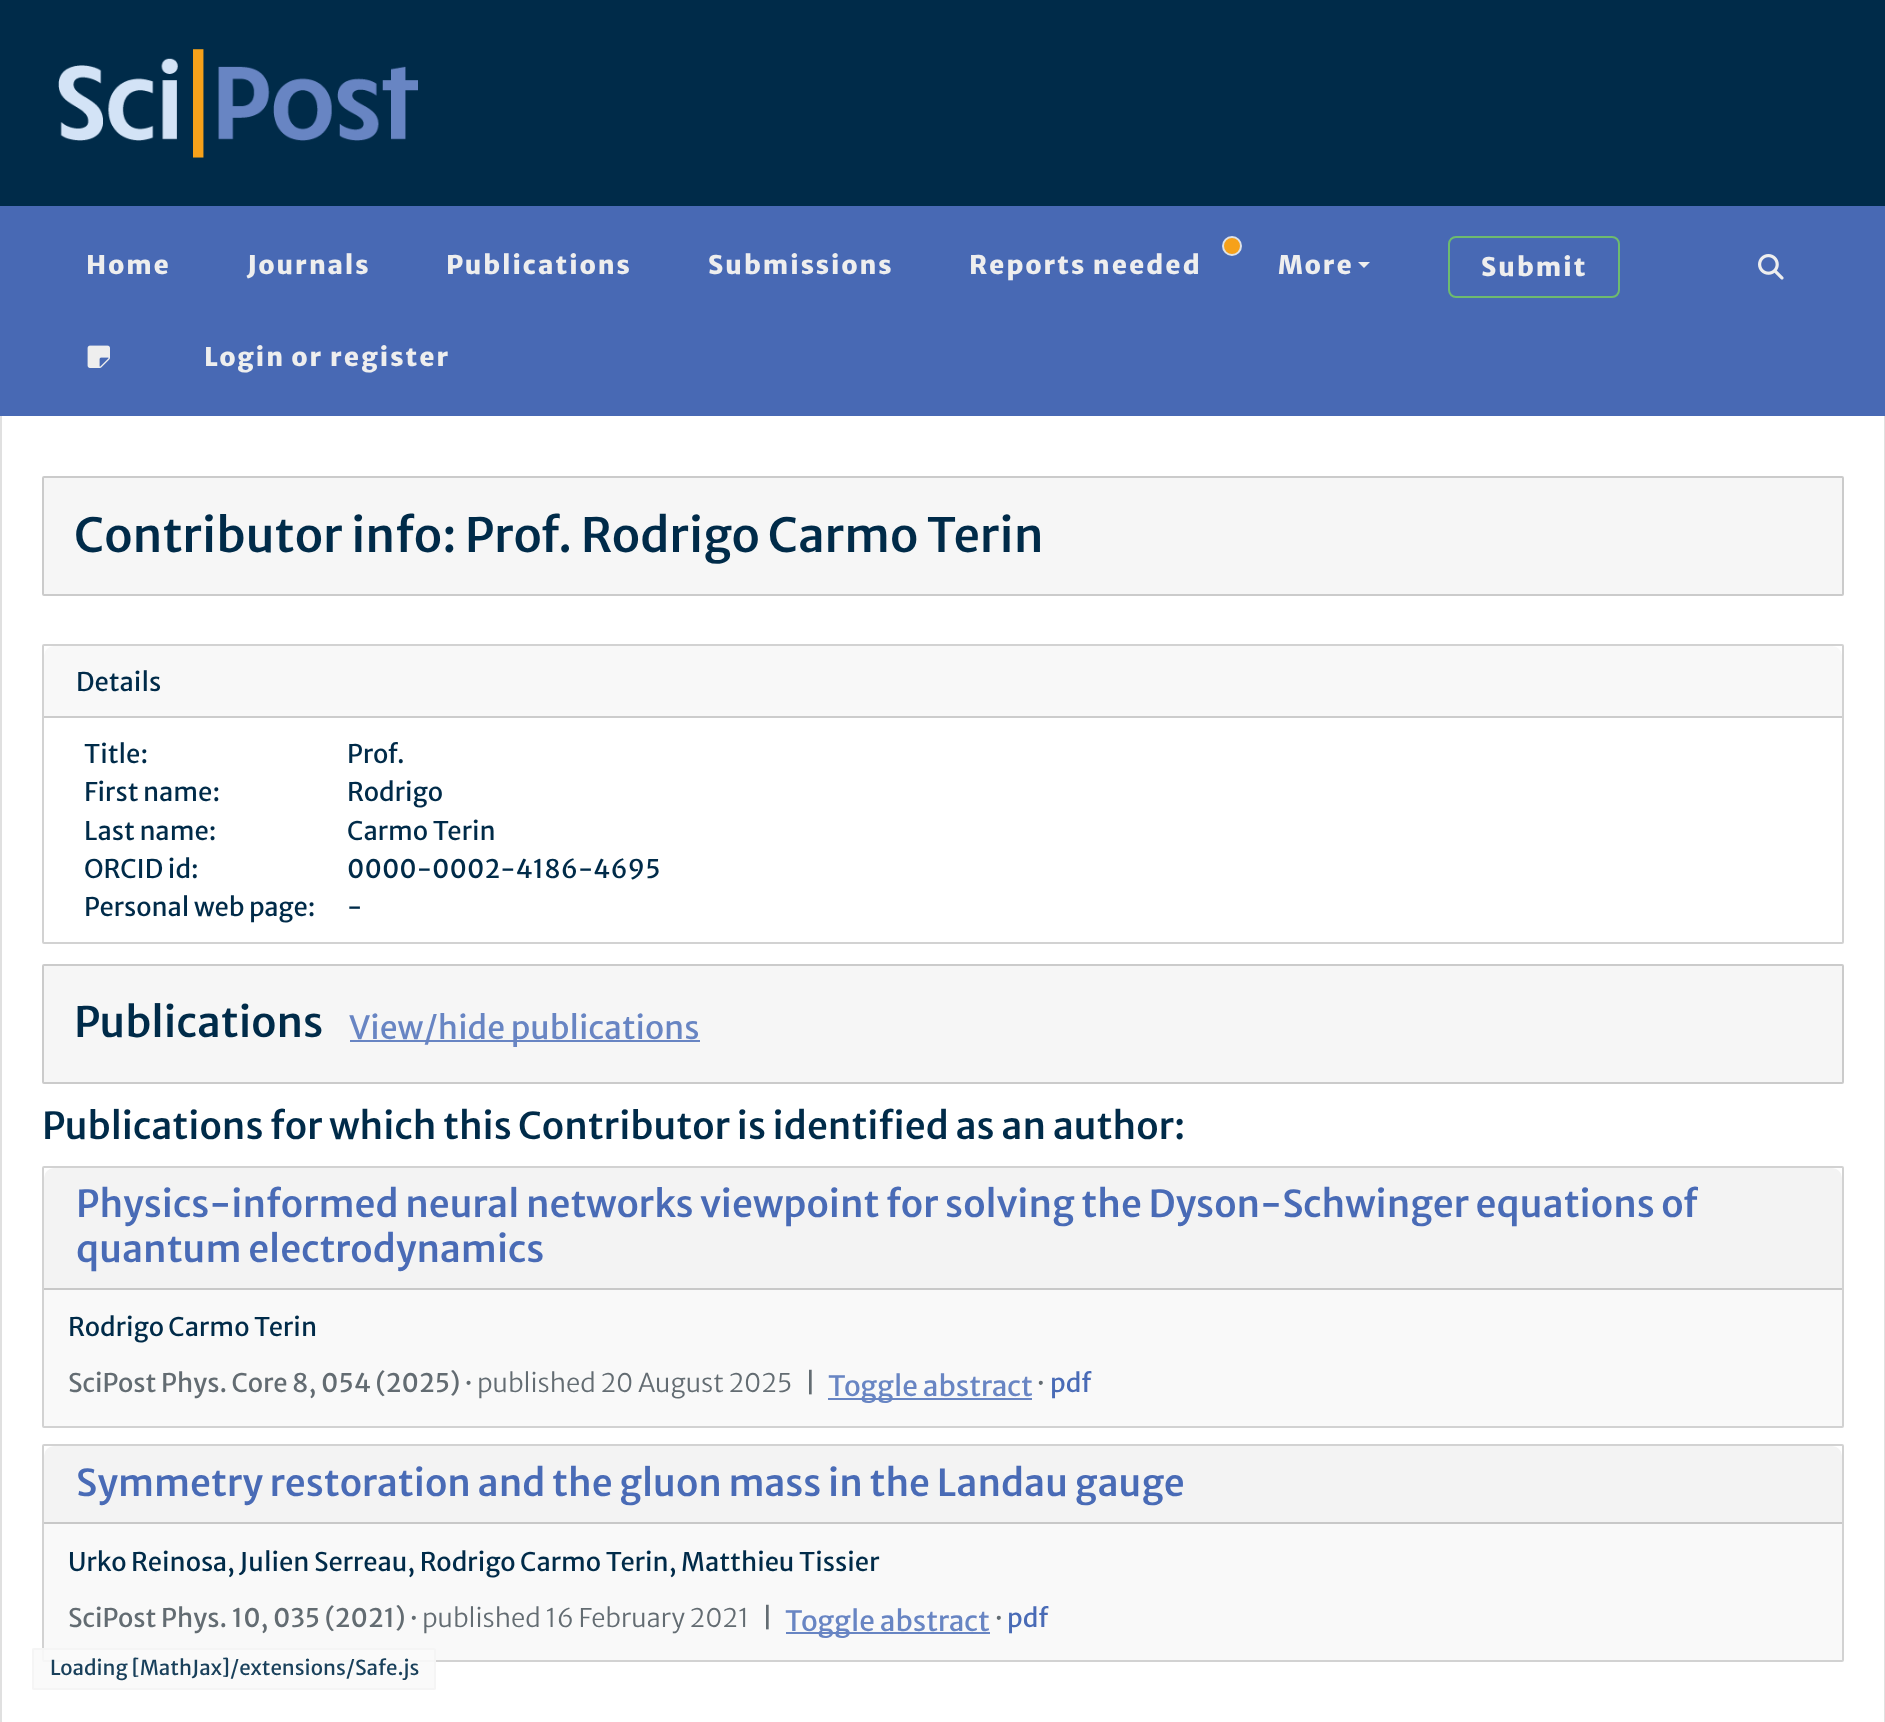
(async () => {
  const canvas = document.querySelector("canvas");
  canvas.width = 1885;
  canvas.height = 1722;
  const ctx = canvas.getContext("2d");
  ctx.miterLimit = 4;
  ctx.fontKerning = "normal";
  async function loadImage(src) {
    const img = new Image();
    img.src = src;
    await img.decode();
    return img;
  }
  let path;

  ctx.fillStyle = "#002b49";
  ctx.fillRect(0, 0, 1885, 1722);
  ctx.drawImage(await loadImage("img/1.png"), 58, 49, 360, 109);
  for (const [x, y, w, h, color] of [
    [1884, 414, 1, 1308, "#e0e0e0"],
    [0, 414, 2, 1308, "#e0e0e0"],
    [0, 206, 1885, 210, "#4869b4"],
  ]) {
    ctx.fillStyle = color;
    ctx.fillRect(x, y, w, h);
  }
  ctx.fillStyle = "#f6a11a";
  ctx.beginPath();
  ctx.arc(1232, 246, 9, 0, Math.PI * 2);
  ctx.fill();
  ctx.strokeStyle = "#dee2e6";
  ctx.lineWidth = 2;
  ctx.stroke();
  ctx.fillStyle = "#eeeeee";
  path = new Path2D("M1358 262H1370L1364 268Z");
  ctx.fill(path);
  ctx.beginPath();
  ctx.roundRect(1449, 237, 170, 60, 7);
  ctx.strokeStyle = "#6ebb6e";
  ctx.stroke();
  ctx.drawImage(await loadImage("img/2.png"), 1758, 254, 26, 26);
  ctx.drawImage(await loadImage("img/3.png"), 87, 345, 23, 23);
  ctx.fillStyle = "#ffffff";
  ctx.fillRect(2, 416, 1882, 1306);
  ctx.fillStyle = "#f6f6f6";
  ctx.beginPath();
  ctx.roundRect(43, 477, 1800, 118, 1);
  ctx.fill();
  ctx.strokeStyle = "#cbcbcb";
  ctx.stroke();
  ctx.beginPath();
  ctx.roundRect(43, 645, 1800, 298, 1);
  ctx.strokeStyle = "#d2d2d2";
  ctx.stroke();
  ctx.fillStyle = "#f8f8f8";
  ctx.beginPath();
  ctx.roundRect(44, 646, 1798, 72, [10, 10, 0, 0]);
  ctx.fill();
  ctx.fillStyle = "#cccccc";
  ctx.fillRect(44, 716, 1798, 2);
  ctx.fillStyle = "#f6f6f6";
  ctx.beginPath();
  ctx.roundRect(43, 965, 1800, 118, 1);
  ctx.fill();
  ctx.strokeStyle = "#cbcbcb";
  ctx.stroke();
  ctx.fillStyle = "#6885c3";
  ctx.fillRect(350, 1040, 350, 2);
  ctx.beginPath();
  ctx.roundRect(43, 1167, 1800, 260, 1);
  ctx.strokeStyle = "#d2d2d2";
  ctx.stroke();
  ctx.fillStyle = "#f3f3f3";
  ctx.beginPath();
  ctx.roundRect(44, 1168, 1798, 122, [10, 10, 0, 0]);
  ctx.fill();
  for (const [x, y, w, h, color] of [
    [44, 1288, 1798, 2, "#c8c8c8"],
    [44, 1290, 1798, 136, "#f9f9f9"],
    [828, 1398, 204, 2, "#6885c3"],
  ]) {
    ctx.fillStyle = color;
    ctx.fillRect(x, y, w, h);
  }
  ctx.beginPath();
  ctx.roundRect(43, 1445, 1800, 216, 1);
  ctx.stroke();
  ctx.fillStyle = "#f3f3f3";
  ctx.beginPath();
  ctx.roundRect(44, 1446, 1798, 78, [10, 10, 0, 0]);
  ctx.fill();
  for (const [x, y, w, h, color] of [
    [44, 1522, 1798, 2, "#c8c8c8"],
    [44, 1524, 1798, 136, "#f9f9f9"],
    [786, 1632, 204, 2, "#6885c3"],
  ]) {
    ctx.fillStyle = color;
    ctx.fillRect(x, y, w, h);
  }
  ctx.fillStyle = "rgba(249, 249, 249, 0.9)";
  ctx.beginPath();
  ctx.roundRect(32, 1648, 404, 42, 2);
  ctx.fill();
  ctx.beginPath();
  ctx.roundRect(33, 1649, 402, 40, 1);
  ctx.strokeStyle = "rgba(244, 244, 244, 0.9)";
  ctx.stroke();
  ctx.letterSpacing = "2px";
  ctx.font = "800 25.6px Merriweather Sans";
  ctx.fillStyle = "#eeeeee";
  for (const [text, x, y] of [
    ["Home", 86, 274],
    ["Journals", 247, 274],
    ["Publications", 446, 274],
    ["Submissions", 708, 274],
    ["Reports needed", 969, 274],
    ["More", 1278, 274],
    ["Submit", 1481, 276],
    ["Login or register", 204, 366],
  ]) {
    ctx.fillText(text, x, y);
  }
  ctx.letterSpacing = "0px";
  ctx.font = "500 47px Merriweather Sans";
  ctx.fillStyle = "#002b49";
  ctx.fillText("Contributor info: Prof. Rodrigo Carmo Terin", 74, 552);
  ctx.font = "25.6px Merriweather Sans";
  for (const [text, x, y] of [
    ["Details", 76, 691],
    ["Title:", 84, 763],
    ["Prof.", 347, 763],
    ["First name:", 84, 801],
    ["Rodrigo", 347, 801],
    ["Last name:", 84, 840],
    ["Carmo Terin", 347, 840],
    ["ORCID id:", 84, 878],
    ["0000-0002-4186-4695", 347, 878],
    ["Personal web page:", 84, 916],
    ["-", 347, 916],
  ]) {
    ctx.fillText(text, x, y);
  }
  ctx.font = "500 41.75px Merriweather Sans";
  ctx.fillText("Publications", 74, 1037);
  ctx.font = "32px Merriweather Sans";
  ctx.fillStyle = "#6885c3";
  ctx.fillText("View/hide publications", 349, 1039);
  ctx.font = "500 37.1px Merriweather Sans";
  ctx.fillStyle = "#002b49";
  ctx.fillText("Publications for which this Contributor is identified as an author:", 42, 1139);
  ctx.wordSpacing = "-0.1px";
  ctx.fillStyle = "#496bb6";
  ctx.fillText("Physics-informed neural networks viewpoint for solving the Dyson-Schwinger equations of", 76, 1217);
  ctx.wordSpacing = "0px";
  ctx.fillText("quantum electrodynamics", 76, 1262);
  ctx.font = "25.6px Merriweather Sans";
  ctx.fillStyle = "#002b49";
  ctx.fillText("Rodrigo Carmo Terin", 68, 1336);
  ctx.fillStyle = "#636c72";
  ctx.fillText("SciPost Phys. Core 8, 054 (2025) ·", 68, 1392);
  ctx.font = "300 25.6px Merriweather Sans";
  ctx.fillText("published 20 August 2025", 477, 1392);
  ctx.font = "25.6px Merriweather Sans";
  ctx.fillText("|", 805, 1392);
  ctx.font = "28px Merriweather Sans";
  ctx.fillStyle = "#6885c3";
  ctx.fillText("Toggle abstract", 828, 1396);
  ctx.font = "25.6px Merriweather Sans";
  ctx.fillStyle = "#636c72";
  ctx.fillText("·", 1037, 1392);
  ctx.fillStyle = "#496bb6";
  ctx.fillText("pdf", 1050, 1392);
  ctx.font = "500 37.1px Merriweather Sans";
  ctx.fillText("Symmetry restoration and the gluon mass in the Landau gauge", 76, 1496);
  ctx.font = "25.6px Merriweather Sans";
  ctx.fillStyle = "#002b49";
  ctx.fillText("Urko Reinosa, Julien Serreau, Rodrigo Carmo Terin, Matthieu Tissier", 68, 1571);
  ctx.fillStyle = "#636c72";
  ctx.fillText("SciPost Phys. 10, 035 (2021) ·", 68, 1627);
  ctx.font = "300 25.6px Merriweather Sans";
  ctx.fillText("published 16 February 2021", 422, 1627);
  ctx.font = "25.6px Merriweather Sans";
  ctx.fillText("|", 762, 1627);
  ctx.font = "28px Merriweather Sans";
  ctx.fillStyle = "#6885c3";
  ctx.fillText("Toggle abstract", 785, 1631);
  ctx.font = "25.6px Merriweather Sans";
  ctx.fillStyle = "#636c72";
  ctx.fillText("·", 995, 1627);
  ctx.fillStyle = "#496bb6";
  ctx.fillText("pdf", 1007, 1627);
  ctx.font = "20.5px Merriweather Sans";
  ctx.fillStyle = "#19405b";
  ctx.fillText("Loading [MathJax]/extensions/Safe.js", 50, 1675);
})();
